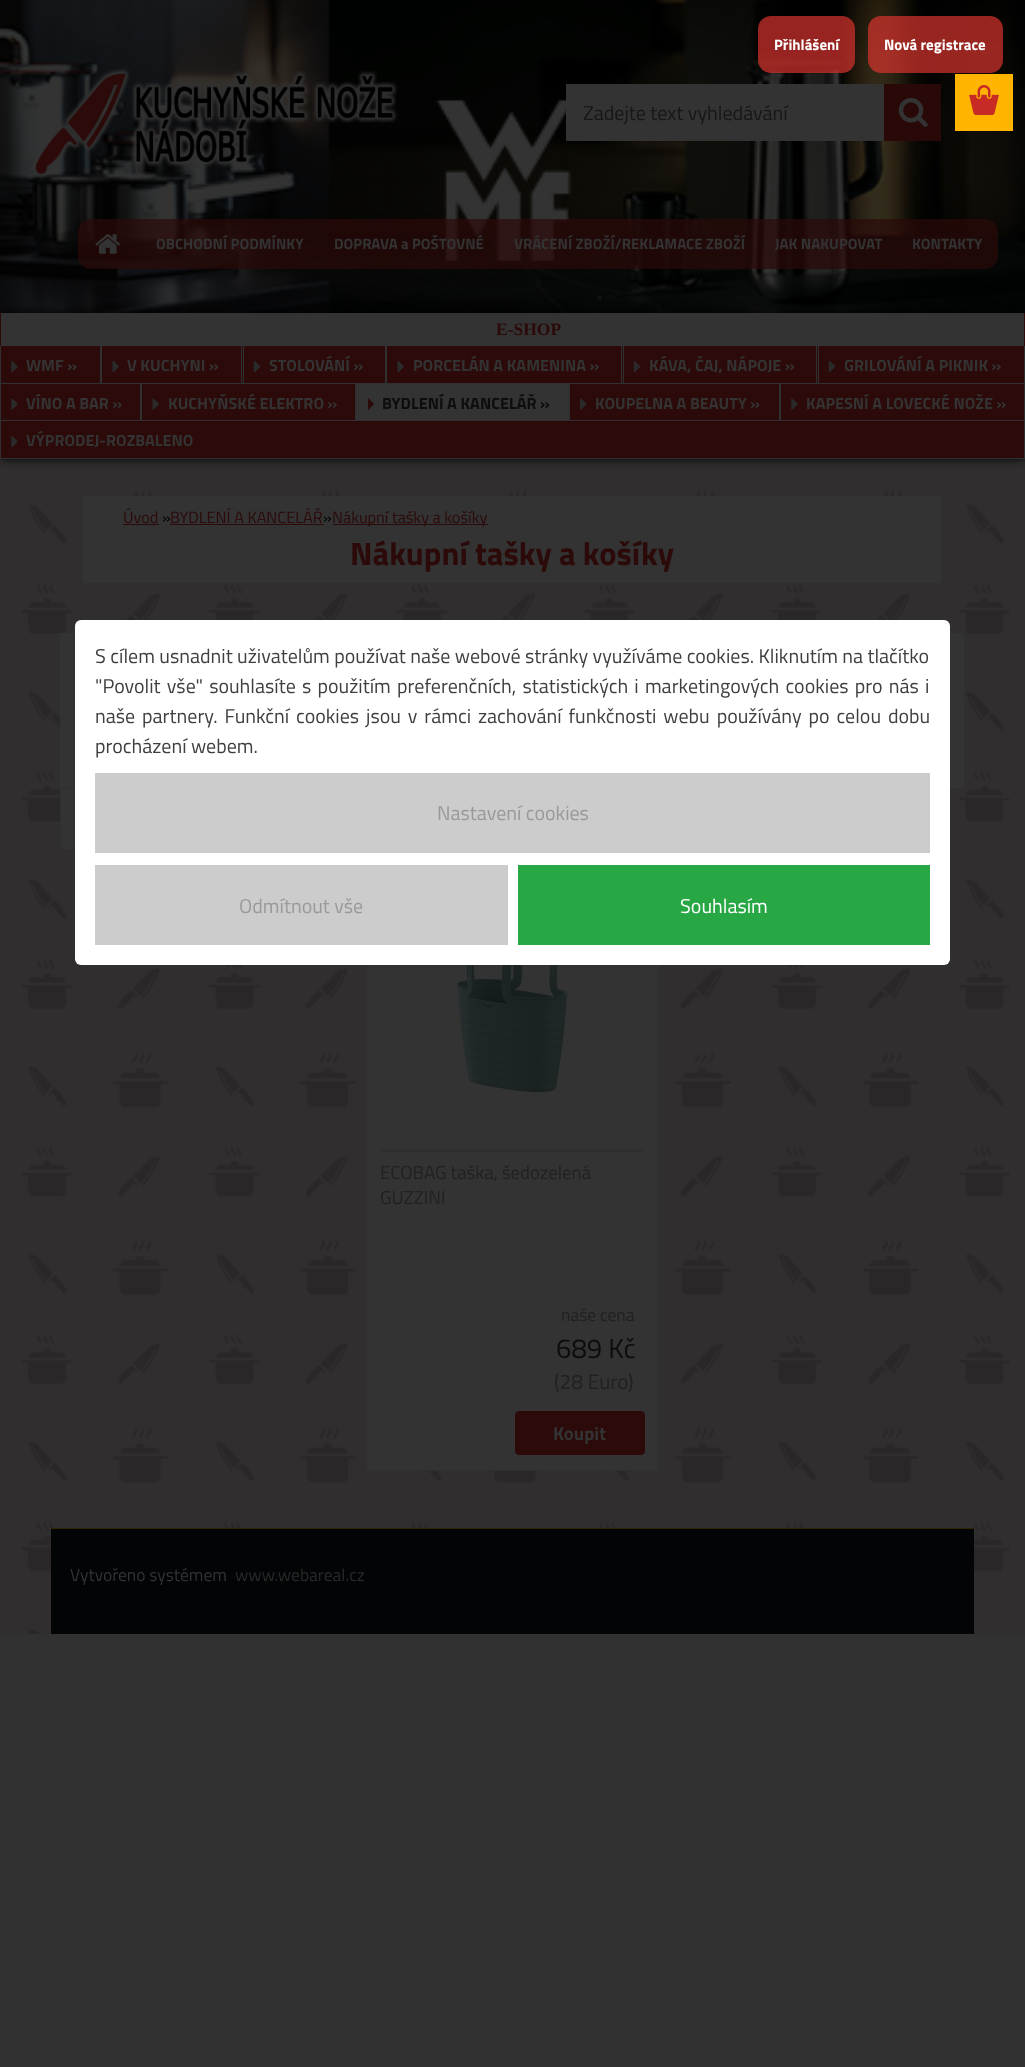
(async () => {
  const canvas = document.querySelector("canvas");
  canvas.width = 1025;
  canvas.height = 2067;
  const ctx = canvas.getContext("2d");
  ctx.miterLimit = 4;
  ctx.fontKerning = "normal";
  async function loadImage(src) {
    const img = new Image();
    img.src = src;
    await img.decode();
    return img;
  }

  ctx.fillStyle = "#313131";
  ctx.fillRect(0, 0, 1025, 2067);
  ctx.fillStyle = "#302e2e";
  ctx.fillRect(0, 459, 1025, 1175);
  ctx.drawImage(await loadImage("img/1.png"), 21, 490, 989, 1144);
  ctx.drawImage(await loadImage("img/4.png"), 0, 0, 1025, 313);
  ctx.fillStyle = "rgba(215, 51, 45, 0.7)";
  ctx.beginPath();
  ctx.roundRect(758, 16, 97, 57, 13);
  ctx.fill();
  ctx.beginPath();
  ctx.roundRect(868, 16, 135, 57, 13);
  ctx.fill();
  ctx.fillStyle = "#ffb400";
  ctx.fillRect(955, 74, 58, 57);
  ctx.drawImage(await loadImage("img/2.png"), 969, 85, 30, 30);
  for (const [x, y, w, h, color] of [
    [83, 496, 858, 87, "#333333"],
    [123, 524, 36, 1, "#2b0a09"],
    [170, 524, 154, 1, "#2b0a09"],
    [333, 524, 155, 1, "#2b0a09"],
    [60, 633, 904, 155, "#333333"],
    [61, 789, 14, 60, "#333333"],
  ]) {
    ctx.fillStyle = color;
    ctx.fillRect(x, y, w, h);
  }
  ctx.strokeStyle = "#2f2f2f";
  ctx.strokeRect(60.5, 788.5, 858, 61);
  ctx.fillRect(367, 965, 291, 505);
  ctx.strokeRect(366.5, 866.5, 292, 604);
  ctx.fillStyle = "#2f2f2f";
  ctx.fillRect(380, 1149, 265, 3);
  ctx.drawImage(await loadImage("img/3.png"), 456, 965, 112, 128);
  ctx.fillStyle = "#2b0a09";
  ctx.beginPath();
  ctx.roundRect(515.5, 1411.5, 129, 43, 3.5);
  ctx.fill();
  ctx.strokeStyle = "#2b0a09";
  ctx.stroke();
  ctx.fillStyle = "#030406";
  ctx.fillRect(51, 1529, 923, 105);
  ctx.fillStyle = "#332400";
  ctx.fillRect(51, 1528, 923, 1);
  ctx.drawImage(await loadImage("img/5.png"), 31, 67, 367, 113);
  ctx.fillStyle = "#333333";
  ctx.fillRect(566, 84, 318, 57);
  ctx.fillStyle = "#280908";
  ctx.fillRect(884, 84, 57, 57);
  ctx.drawImage(await loadImage("img/6.png"), 898, 98, 30, 29);
  ctx.fillStyle = "rgba(43, 10, 9, 0.7)";
  ctx.beginPath();
  ctx.roundRect(78, 219, 920, 50, 13);
  ctx.fill();
  ctx.drawImage(await loadImage("img/7.png"), 95, 234, 26, 20);
  ctx.fillStyle = "#000000";
  ctx.filter = "blur(5px)";
  ctx.beginPath();
  ctx.rect(0, 313, 1025, 146);
  ctx.fill();
  ctx.filter = "none";
  for (const [x, y, w, h, color] of [
    [1, 313, 1023, 33, "#333333"],
    [1024, 313, 1, 33, "#2b0a09"],
    [0, 313, 1, 33, "#2b0a09"],
    [1, 346, 99, 37, "#2b0a09"],
    [100, 346, 1, 38, "#303030"],
    [0, 383, 101, 1, "#303030"],
    [0, 346, 1, 38, "#303030"],
  ]) {
    ctx.fillStyle = color;
    ctx.fillRect(x, y, w, h);
  }
  ctx.drawImage(await loadImage("img/8.png"), 11, 361, 7, 12);
  for (const [x, y, w, h, color] of [
    [102, 346, 141, 37, "#2b0a09"],
    [241, 346, 1, 38, "#303030"],
    [101, 383, 142, 1, "#303030"],
    [101, 346, 1, 38, "#303030"],
  ]) {
    ctx.fillStyle = color;
    ctx.fillRect(x, y, w, h);
  }
  ctx.drawImage(await loadImage("img/9.png"), 112, 361, 7, 12);
  for (const [x, y, w, h, color] of [
    [244, 346, 141, 37, "#2b0a09"],
    [385, 346, 1, 38, "#303030"],
    [243, 383, 143, 1, "#303030"],
    [243, 346, 1, 38, "#303030"],
  ]) {
    ctx.fillStyle = color;
    ctx.fillRect(x, y, w, h);
  }
  ctx.drawImage(await loadImage("img/10.png"), 253, 361, 8, 12);
  for (const [x, y, w, h, color] of [
    [387, 346, 236, 37, "#2b0a09"],
    [621, 346, 1, 38, "#303030"],
    [386, 383, 237, 1, "#303030"],
    [386, 346, 1, 38, "#303030"],
  ]) {
    ctx.fillStyle = color;
    ctx.fillRect(x, y, w, h);
  }
  ctx.drawImage(await loadImage("img/9.png"), 397, 361, 7, 12);
  for (const [x, y, w, h, color] of [
    [624, 346, 194, 37, "#2b0a09"],
    [816, 346, 1, 38, "#303030"],
    [623, 383, 195, 1, "#303030"],
    [623, 346, 1, 38, "#303030"],
  ]) {
    ctx.fillStyle = color;
    ctx.fillRect(x, y, w, h);
  }
  ctx.drawImage(await loadImage("img/10.png"), 633, 361, 8, 12);
  for (const [x, y, w, h, color] of [
    [819, 346, 205, 37, "#2b0a09"],
    [1024, 346, 1, 113, "#303030"],
    [818, 383, 207, 1, "#303030"],
    [818, 346, 1, 38, "#303030"],
  ]) {
    ctx.fillStyle = color;
    ctx.fillRect(x, y, w, h);
  }
  ctx.drawImage(await loadImage("img/10.png"), 828, 361, 8, 12);
  for (const [x, y, w, h, color] of [
    [1, 384, 139, 36, "#2b0a09"],
    [140, 384, 1, 37, "#303030"],
    [0, 420, 141, 1, "#303030"],
    [0, 384, 1, 37, "#303030"],
  ]) {
    ctx.fillStyle = color;
    ctx.fillRect(x, y, w, h);
  }
  ctx.drawImage(await loadImage("img/11.png"), 11, 398, 7, 12);
  for (const [x, y, w, h, color] of [
    [142, 384, 213, 36, "#2b0a09"],
    [355, 384, 1, 37, "#303030"],
    [141, 420, 215, 1, "#303030"],
    [141, 384, 1, 37, "#303030"],
  ]) {
    ctx.fillStyle = color;
    ctx.fillRect(x, y, w, h);
  }
  ctx.drawImage(await loadImage("img/12.png"), 152, 398, 7, 12);
  for (const [x, y, w, h, color] of [
    [357, 384, 211, 36, "#333333"],
    [568, 384, 1, 37, "#303030"],
    [356, 420, 213, 1, "#303030"],
    [356, 384, 1, 37, "#303030"],
  ]) {
    ctx.fillStyle = color;
    ctx.fillRect(x, y, w, h);
  }
  ctx.drawImage(await loadImage("img/13.png"), 368, 398, 6, 12);
  for (const [x, y, w, h, color] of [
    [570, 384, 209, 36, "#2b0a09"],
    [779, 384, 1, 37, "#303030"],
    [569, 420, 456, 1, "#303030"],
    [569, 384, 1, 37, "#303030"],
  ]) {
    ctx.fillStyle = color;
    ctx.fillRect(x, y, w, h);
  }
  ctx.drawImage(await loadImage("img/14.png"), 580, 398, 7, 12);
  ctx.fillStyle = "#2b0a09";
  ctx.fillRect(781, 384, 243, 36);
  ctx.fillStyle = "#303030";
  ctx.fillRect(780, 384, 1, 37);
  ctx.drawImage(await loadImage("img/11.png"), 791, 398, 7, 12);
  for (const [x, y, w, h, color] of [
    [1, 421, 1023, 37, "#2b0a09"],
    [0, 458, 1025, 1, "#303030"],
    [0, 421, 1, 38, "#303030"],
  ]) {
    ctx.fillStyle = color;
    ctx.fillRect(x, y, w, h);
  }
  ctx.drawImage(await loadImage("img/8.png"), 11, 436, 7, 12);
  ctx.fillStyle = "#ffffff";
  ctx.beginPath();
  ctx.roundRect(75, 620, 875, 345, 6);
  ctx.fill();
  for (const [x, y, w, h, color] of [
    [95, 773, 835, 80, "#cccccc"],
    [95, 865, 413, 80, "#cccccc"],
    [518, 865, 412, 80, "#28a745"],
  ]) {
    ctx.fillStyle = color;
    ctx.fillRect(x, y, w, h);
  }
  ctx.font = "bold 15px Titillium Web";
  ctx.fillStyle = "#ffffff";
  ctx.fillText("Přihlášení", 774, 50);
  ctx.fillText("Nová registrace", 884, 50);
  ctx.font = "16.25px Titillium Web";
  ctx.fillStyle = "#2b0a09";
  ctx.fillText("Úvod", 123, 523);
  ctx.fillStyle = "#000000";
  ctx.fillText("»", 162, 523);
  ctx.fillStyle = "#2b0a09";
  ctx.fillText("BYDLENÍ A KANCELÁŘ", 170, 523);
  ctx.fillStyle = "#000000";
  ctx.fillText("»", 323, 523);
  ctx.fillStyle = "#2b0a09";
  ctx.fillText("Nákupní tašky a košíky", 332, 523);
  ctx.font = "bold 32.5px Titillium Web";
  ctx.fillText("Nákupní tašky a košíky", 350, 565);
  ctx.font = "18.75px Titillium Web";
  ctx.fillStyle = "#212121";
  ctx.fillText("ECOBAG taška, šedozelená", 380, 1179);
  ctx.fillText("GUZZINI", 380, 1204);
  ctx.font = "17.5px Titillium Web";
  ctx.fillText("naše cena", 561, 1321);
  ctx.font = "27.5px Titillium Web";
  ctx.fillStyle = "#0d0d0d";
  ctx.fillText("689 Kč", 556, 1358);
  ctx.font = "21px Titillium Web";
  ctx.fillStyle = "#212121";
  ctx.fillText("(28 Euro)", 554, 1389);
  ctx.font = "bold 18.75px Titillium Web";
  ctx.fillStyle = "#333333";
  ctx.fillText("Koupit", 553, 1440);
  ctx.font = "17.5px Titillium Web";
  ctx.fillText("Vytvořeno systémem", 70, 1581);
  ctx.fillStyle = "#292929";
  ctx.fillText("www.webareal.cz", 235, 1581);
  ctx.font = "20px Titillium Web";
  ctx.fillStyle = "#171717";
  ctx.fillText("Zadejte text vyhledávání", 583, 120);
  ctx.font = "bold 15px Titillium Web";
  ctx.fillStyle = "#333333";
  for (const [text, x, y] of [
    ["OBCHODNÍ PODMÍNKY", 156, 249],
    ["DOPRAVA a POŠTOVNÉ", 334, 249],
    ["VRÁCENÍ ZBOŽÍ/REKLAMACE ZBOŽÍ", 514, 249],
    ["JAK NAKUPOVAT", 775, 249],
    ["KONTAKTY", 912, 249],
  ]) {
    ctx.fillText(text, x, y);
  }
  ctx.font = "bold 17.5px Liberation Serif";
  ctx.fillStyle = "#2b0a09";
  ctx.fillText("E-SHOP", 496, 335);
  ctx.font = "bold 16.25px Titillium Web";
  ctx.fillStyle = "#333333";
  for (const [text, x, y] of [
    ["WMF »", 26, 371],
    ["V KUCHYNI »", 127, 371],
    ["STOLOVÁNÍ »", 269, 371],
    ["PORCELÁN A KAMENINA »", 413, 371],
    ["KÁVA, ČAJ, NÁPOJE »", 649, 371],
    ["GRILOVÁNÍ A PIKNIK »", 844, 371],
    ["VÍNO A BAR »", 26, 409],
    ["KUCHYŇSKÉ ELEKTRO »", 168, 409],
  ]) {
    ctx.fillText(text, x, y);
  }
  ctx.fillStyle = "#0d0d0d";
  ctx.fillText("BYDLENÍ A KANCELÁŘ »", 382, 409);
  ctx.fillStyle = "#333333";
  for (const [text, x, y] of [
    ["KOUPELNA A BEAUTY »", 595, 409],
    ["KAPESNÍ A LOVECKÉ NOŽE »", 806, 409],
    ["VÝPRODEJ-ROZBALENO", 26, 446],
  ]) {
    ctx.fillText(text, x, y);
  }
  ctx.font = "20px Titillium Web";
  ctx.fillStyle = "#3f3f3f";
  ctx.fillText("S cílem usnadnit uživatelům používat naše webové stránky využíváme cookies. Kliknutím na tlačítko", 95, 663);
  ctx.wordSpacing = "1.8px";
  ctx.fillText("\"Povolit vše\" souhlasíte s použitím preferenčních, statistických i marketingových cookies pro nás i", 95, 693);
  ctx.wordSpacing = "2.5px";
  ctx.fillText("naše partnery. Funkční cookies jsou v rámci zachování funkčnosti webu používány po celou dobu", 95, 723);
  ctx.wordSpacing = "0px";
  ctx.fillText("procházení webem.", 95, 753);
  ctx.fillStyle = "#999999";
  ctx.fillText("Nastavení cookies", 437, 820);
  ctx.fillText("Odmítnout vše", 239, 913);
  ctx.fillStyle = "#ffffff";
  ctx.fillText("Souhlasím", 680, 913);
})();
